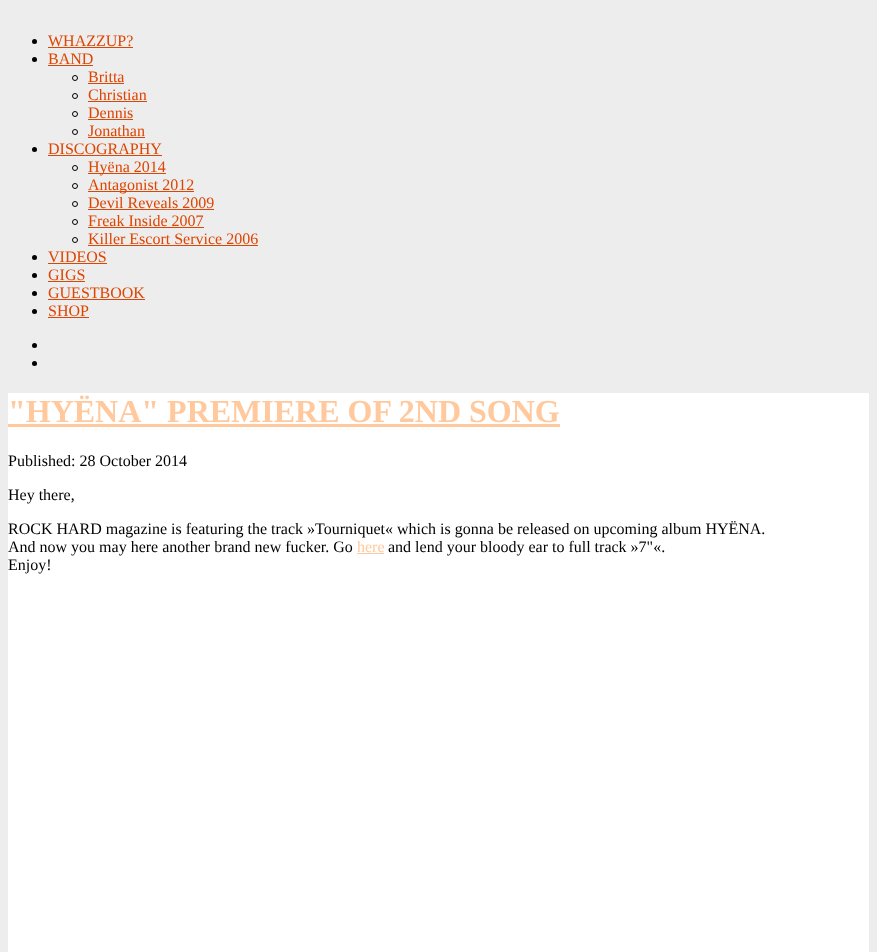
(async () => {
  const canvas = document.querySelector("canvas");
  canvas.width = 877;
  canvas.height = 952;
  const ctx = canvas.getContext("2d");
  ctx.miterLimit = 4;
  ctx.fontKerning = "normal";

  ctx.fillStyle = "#ededee";
  ctx.fillRect(0, 0, 877, 952);
  ctx.fillStyle = "#000000";
  ctx.beginPath();
  ctx.arc(34.5, 41.5, 2.5, 0, Math.PI * 2);
  ctx.fill();
  ctx.fillStyle = "#dd4500";
  ctx.fillRect(48, 47, 85, 1);
  ctx.fillStyle = "#000000";
  ctx.beginPath();
  ctx.arc(34.5, 59.5, 2.5, 0, Math.PI * 2);
  ctx.fill();
  ctx.fillStyle = "#dd4500";
  ctx.fillRect(48, 65, 45, 1);
  ctx.beginPath();
  ctx.arc(75, 78, 2.5, 0, Math.PI * 2);
  ctx.strokeStyle = "#000000";
  ctx.stroke();
  ctx.fillRect(88, 83, 36, 1);
  ctx.beginPath();
  ctx.arc(75, 96, 2.5, 0, Math.PI * 2);
  ctx.stroke();
  ctx.fillRect(88, 101, 59, 1);
  ctx.beginPath();
  ctx.arc(75, 114, 2.5, 0, Math.PI * 2);
  ctx.stroke();
  ctx.fillRect(88, 119, 45, 1);
  ctx.beginPath();
  ctx.arc(75, 132, 2.5, 0, Math.PI * 2);
  ctx.stroke();
  ctx.fillRect(88, 137, 57, 1);
  ctx.fillStyle = "#000000";
  ctx.beginPath();
  ctx.arc(34.5, 149.5, 2.5, 0, Math.PI * 2);
  ctx.fill();
  ctx.fillStyle = "#dd4500";
  ctx.fillRect(48, 155, 114, 1);
  ctx.beginPath();
  ctx.arc(75, 168, 2.5, 0, Math.PI * 2);
  ctx.stroke();
  ctx.fillRect(88, 173, 78, 1);
  ctx.beginPath();
  ctx.arc(75, 186, 2.5, 0, Math.PI * 2);
  ctx.stroke();
  ctx.fillRect(88, 191, 106, 1);
  ctx.beginPath();
  ctx.arc(75, 204, 2.5, 0, Math.PI * 2);
  ctx.stroke();
  ctx.fillRect(88, 209, 126, 1);
  ctx.beginPath();
  ctx.arc(75, 222, 2.5, 0, Math.PI * 2);
  ctx.stroke();
  ctx.fillRect(88, 227, 116, 1);
  ctx.beginPath();
  ctx.arc(75, 240, 2.5, 0, Math.PI * 2);
  ctx.stroke();
  ctx.fillRect(88, 245, 170, 1);
  ctx.fillStyle = "#000000";
  ctx.beginPath();
  ctx.arc(34.5, 257.5, 2.5, 0, Math.PI * 2);
  ctx.fill();
  ctx.fillStyle = "#dd4500";
  ctx.fillRect(48, 263, 59, 1);
  ctx.fillStyle = "#000000";
  ctx.beginPath();
  ctx.arc(34.5, 275.5, 2.5, 0, Math.PI * 2);
  ctx.fill();
  ctx.fillStyle = "#dd4500";
  ctx.fillRect(48, 281, 37, 1);
  ctx.fillStyle = "#000000";
  ctx.beginPath();
  ctx.arc(34.5, 293.5, 2.5, 0, Math.PI * 2);
  ctx.fill();
  ctx.fillStyle = "#dd4500";
  ctx.fillRect(48, 299, 97, 1);
  ctx.fillStyle = "#000000";
  ctx.beginPath();
  ctx.arc(34.5, 311.5, 2.5, 0, Math.PI * 2);
  ctx.fill();
  ctx.fillStyle = "#dd4500";
  ctx.fillRect(48, 317, 41, 1);
  ctx.fillStyle = "#000000";
  ctx.beginPath();
  ctx.arc(34.5, 345.5, 2.5, 0, Math.PI * 2);
  ctx.fill();
  ctx.beginPath();
  ctx.arc(34.5, 363.5, 2.5, 0, Math.PI * 2);
  ctx.fill();
  for (const [x, y, w, h, color] of [
    [8, 393, 861, 559, "#ffffff"],
    [8, 424, 552, 3, "#ffc99d"],
    [357, 553, 27, 1, "#ffc99d"],
  ]) {
    ctx.fillStyle = color;
    ctx.fillRect(x, y, w, h);
  }
  ctx.font = "16px Liberation Serif";
  ctx.fillStyle = "#dd4500";
  for (const [text, x, y] of [
    ["WHAZZUP?", 48, 46],
    ["BAND", 48, 64],
    ["Britta", 88, 82],
    ["Christian", 88, 100],
    ["Dennis", 88, 118],
    ["Jonathan", 88, 136],
    ["DISCOGRAPHY", 48, 154],
    ["Hyëna 2014", 88, 172],
    ["Antagonist 2012", 88, 190],
    ["Devil Reveals 2009", 88, 208],
    ["Freak Inside 2007", 88, 226],
    ["Killer Escort Service 2006", 88, 244],
    ["VIDEOS", 48, 262],
    ["GIGS", 48, 280],
    ["GUESTBOOK", 48, 298],
    ["SHOP", 48, 316],
  ]) {
    ctx.fillText(text, x, y);
  }
  ctx.font = "bold 32px Liberation Serif";
  ctx.fillStyle = "#ffc99d";
  ctx.fillText("\"HYËNA\" PREMIERE OF 2ND SONG", 8, 422);
  ctx.font = "16px Liberation Serif";
  ctx.fillStyle = "#000000";
  for (const [text, x, y] of [
    ["Published: 28 October 2014", 8, 466],
    ["Hey there,", 8, 500],
    ["ROCK HARD magazine is featuring the track »Tourniquet« which is gonna be released on upcoming album HYËNA.", 8, 534],
    ["And now you may here another brand new fucker. Go", 8, 552],
  ]) {
    ctx.fillText(text, x, y);
  }
  ctx.fillStyle = "#ffc99d";
  ctx.fillText("here", 357, 552);
  ctx.fillStyle = "#000000";
  ctx.fillText("and lend your bloody ear to full track »7\"«.", 388, 552);
  ctx.fillText("Enjoy!", 8, 570);
})();
